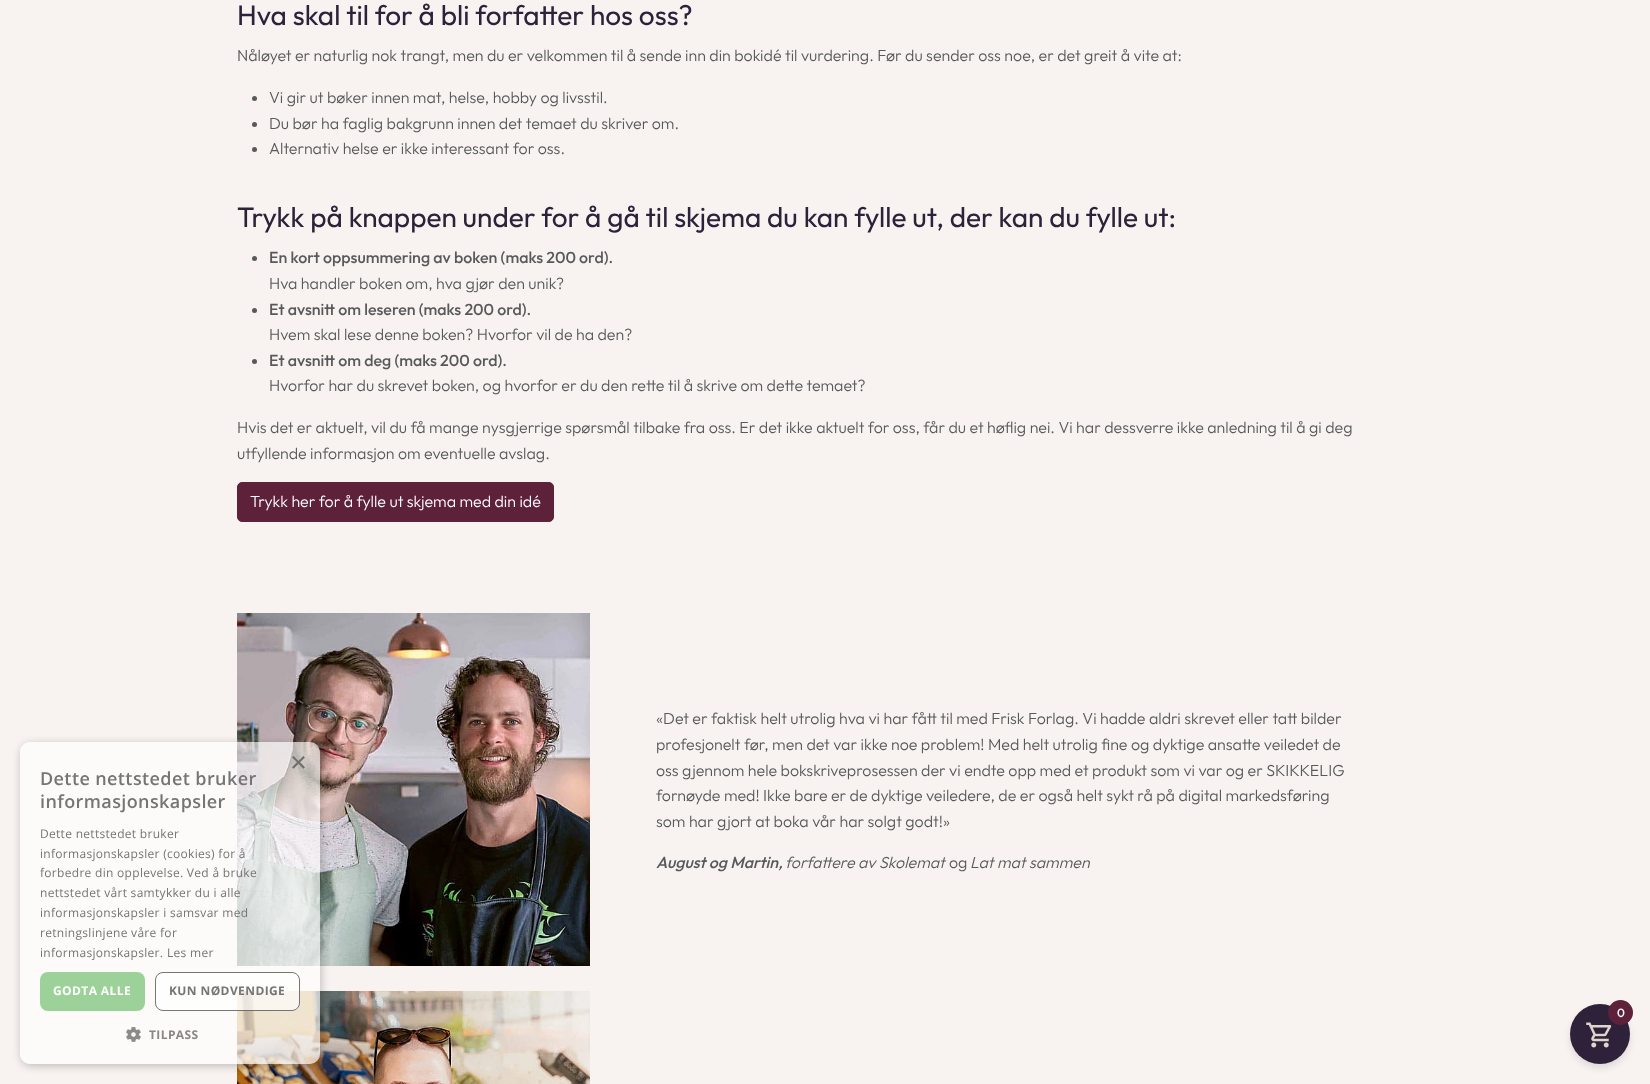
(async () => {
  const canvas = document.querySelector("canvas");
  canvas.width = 1650;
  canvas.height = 1084;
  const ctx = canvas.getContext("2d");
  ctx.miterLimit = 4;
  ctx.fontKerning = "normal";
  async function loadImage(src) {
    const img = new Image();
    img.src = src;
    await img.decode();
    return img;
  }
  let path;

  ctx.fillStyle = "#f8f3f0";
  ctx.fillRect(0, 0, 1650, 1084);
  ctx.drawImage(await loadImage("img/2.png"), 237, 613, 353, 353);
  ctx.drawImage(await loadImage("img/3.png"), 237, 991, 353, 93);
  ctx.save();
  path = new Path2D("M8 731H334V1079H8ZM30 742H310C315.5 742 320 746.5 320 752V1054C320 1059.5 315.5 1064 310 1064H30C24.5 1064 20 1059.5 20 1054V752C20 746.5 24.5 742 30 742Z");
  ctx.clip(path, "evenodd");
  ctx.fillStyle = "rgba(0, 0, 0, 0.23)";
  ctx.filter = "blur(4px)";
  ctx.beginPath();
  ctx.roundRect(21, 744, 300, 322, 10);
  ctx.fill();
  ctx.filter = "none";
  ctx.restore();
  ctx.fillStyle = "rgba(255, 255, 255, 0.65)";
  ctx.beginPath();
  ctx.roundRect(20, 742, 300, 322, 10);
  ctx.fill();
  ctx.fillStyle = "#9dd19a";
  ctx.beginPath();
  ctx.roundRect(40, 972, 105, 39, 8);
  ctx.fill();
  ctx.fillStyle = "rgba(255, 255, 255, 0.65)";
  ctx.beginPath();
  ctx.roundRect(155, 972, 145, 39, 8);
  ctx.fill();
  ctx.beginPath();
  ctx.roundRect(155.5, 972.5, 144, 38, 7.5);
  ctx.strokeStyle = "rgba(45, 45, 45, 0.65)";
  ctx.stroke();
  ctx.drawImage(await loadImage("img/1.png"), 126, 1027, 15, 15);
  ctx.fillStyle = "#58595b";
  ctx.beginPath();
  ctx.arc(254.5, 98.5, 2.5, 0, Math.PI * 2);
  ctx.fill();
  ctx.beginPath();
  ctx.arc(254.5, 124.5, 2.5, 0, Math.PI * 2);
  ctx.fill();
  ctx.beginPath();
  ctx.arc(254.5, 149.5, 2.5, 0, Math.PI * 2);
  ctx.fill();
  ctx.beginPath();
  ctx.arc(254.5, 258.5, 2.5, 0, Math.PI * 2);
  ctx.fill();
  ctx.beginPath();
  ctx.arc(254.5, 310.5, 2.5, 0, Math.PI * 2);
  ctx.fill();
  ctx.beginPath();
  ctx.arc(254.5, 361.5, 2.5, 0, Math.PI * 2);
  ctx.fill();
  ctx.fillStyle = "#5e213a";
  ctx.beginPath();
  ctx.roundRect(237.5, 482.5, 316, 39, 4.5);
  ctx.fill();
  ctx.strokeStyle = "#5e213a";
  ctx.stroke();
  ctx.fillStyle = "rgba(0, 0, 0, 0.1)";
  ctx.filter = "blur(3.5px)";
  ctx.beginPath();
  ctx.roundRect(1570, 1008, 60, 60, 30);
  ctx.fill();
  ctx.filter = "none";
  ctx.fillStyle = "#2d223a";
  ctx.beginPath();
  ctx.arc(1600, 1034, 30, 0, Math.PI * 2);
  ctx.fill();
  ctx.drawImage(await loadImage("img/4.png"), 1586, 1022, 26, 26);
  ctx.fillStyle = "#5e213a";
  ctx.beginPath();
  ctx.arc(1620.5, 1012.5, 12.5, 0, Math.PI * 2);
  ctx.fill();
  ctx.font = "29px Liberation Sans";
  ctx.fillStyle = "#706e6c";
  ctx.fillText("×", 290, 772);
  ctx.letterSpacing = "0.4px";
  ctx.font = "600 18px Open Sans";
  ctx.fillStyle = "#767575";
  ctx.fillText("Dette nettstedet bruker", 40, 785);
  ctx.fillText("informasjonskapsler", 40, 808);
  ctx.letterSpacing = "0.3px";
  ctx.font = "12px Open Sans";
  for (const [text, x, y] of [
    ["Dette nettstedet bruker", 40, 838],
    ["informasjonskapsler (cookies) for å", 40, 858],
    ["forbedre din opplevelse. Ved å bruke", 40, 877],
    ["nettstedet vårt samtykker du i alle", 40, 897],
    ["informasjonskapsler i samsvar med", 40, 917],
    ["retningslinjene våre for", 40, 937],
    ["informasjonskapsler.", 40, 957],
    ["Les mer", 167, 957],
  ]) {
    ctx.fillText(text, x, y);
  }
  ctx.letterSpacing = "0.4px";
  ctx.font = "bold 12px Open Sans";
  ctx.fillStyle = "#ffffff";
  ctx.fillText("GODTA ALLE", 53, 995);
  ctx.fillStyle = "#767575";
  ctx.fillText("KUN NØDVENDIGE", 169, 995);
  ctx.fillStyle = "#898685";
  ctx.fillText("TILPASS", 149, 1039);
  ctx.letterSpacing = "0px";
  ctx.font = "28px Outfit";
  ctx.fillStyle = "#2d223a";
  ctx.fillText("Hva skal til for å bli forfatter hos oss?", 237, 25);
  ctx.font = "300 16px Outfit";
  ctx.fillStyle = "#58595b";
  for (const [text, x, y] of [
    ["Nåløyet er naturlig nok trangt, men du er velkommen til å sende inn din bokidé til vurdering. Før du sender oss noe, er det greit å vite at:", 237, 61],
    ["Vi gir ut bøker innen mat, helse, hobby og livsstil.", 269, 103],
    ["Du bør ha faglig bakgrunn innen det temaet du skriver om.", 269, 129],
    ["Alternativ helse er ikke interessant for oss.", 269, 154],
  ]) {
    ctx.fillText(text, x, y);
  }
  ctx.font = "28px Outfit";
  ctx.fillStyle = "#2d223a";
  ctx.fillText("Trykk på knappen under for å gå til skjema du kan fylle ut, der kan du fylle ut:", 237, 227);
  ctx.font = "500 16px Outfit";
  ctx.fillStyle = "#58595b";
  ctx.fillText("En kort oppsummering av boken (maks 200 ord).", 269, 263);
  ctx.font = "300 16px Outfit";
  ctx.fillText("Hva handler boken om, hva gjør den unik?", 269, 289);
  ctx.font = "500 16px Outfit";
  ctx.fillText("Et avsnitt om leseren (maks 200 ord).", 269, 315);
  ctx.font = "300 16px Outfit";
  ctx.fillText("Hvem skal lese denne boken? Hvorfor vil de ha den?", 269, 340);
  ctx.font = "500 16px Outfit";
  ctx.fillText("Et avsnitt om deg (maks 200 ord).", 269, 366);
  ctx.font = "300 16px Outfit";
  for (const [text, x, y] of [
    ["Hvorfor har du skrevet boken, og hvorfor er du den rette til å skrive om dette temaet?", 269, 391],
    ["Hvis det er aktuelt, vil du få mange nysgjerrige spørsmål tilbake fra oss. Er det ikke aktuelt for oss, får du et høflig nei. Vi har dessverre ikke anledning til å gi deg", 237, 433],
    ["utfyllende informasjon om eventuelle avslag.", 237, 459],
  ]) {
    ctx.fillText(text, x, y);
  }
  ctx.fillStyle = "#ffffff";
  ctx.fillText("Trykk her for å fylle ut skjema med din idé", 250, 507);
  ctx.fillStyle = "#58595b";
  for (const [text, x, y] of [
    ["«Det er faktisk helt utrolig hva vi har fått til med Frisk Forlag. Vi hadde aldri skrevet eller tatt bilder", 656, 724],
    ["profesjonelt før, men det var ikke noe problem! Med helt utrolig fine og dyktige ansatte veiledet de", 656, 750],
    ["oss gjennom hele bokskriveprosessen der vi endte opp med et produkt som vi var og er SKIKKELIG", 656, 776],
    ["fornøyde med! Ikke bare er de dyktige veiledere, de er også helt sykt rå på digital markedsføring", 656, 801],
    ["som har gjort at boka vår har solgt godt!»", 656, 827],
  ]) {
    ctx.fillText(text, x, y);
  }
  ctx.font = "italic 500 16px Outfit";
  ctx.fillText("August og Martin,", 656, 868);
  ctx.font = "italic 300 16px Outfit";
  ctx.fillText("forfattere av Skolemat", 785, 868);
  ctx.font = "300 16px Outfit";
  ctx.fillText("og", 949, 868);
  ctx.font = "italic 300 16px Outfit";
  ctx.fillText("Lat mat sammen", 970, 868);
  ctx.font = "500 12px Outfit";
  ctx.fillStyle = "#ffffff";
  ctx.fillText("0", 1617, 1017);
})();
